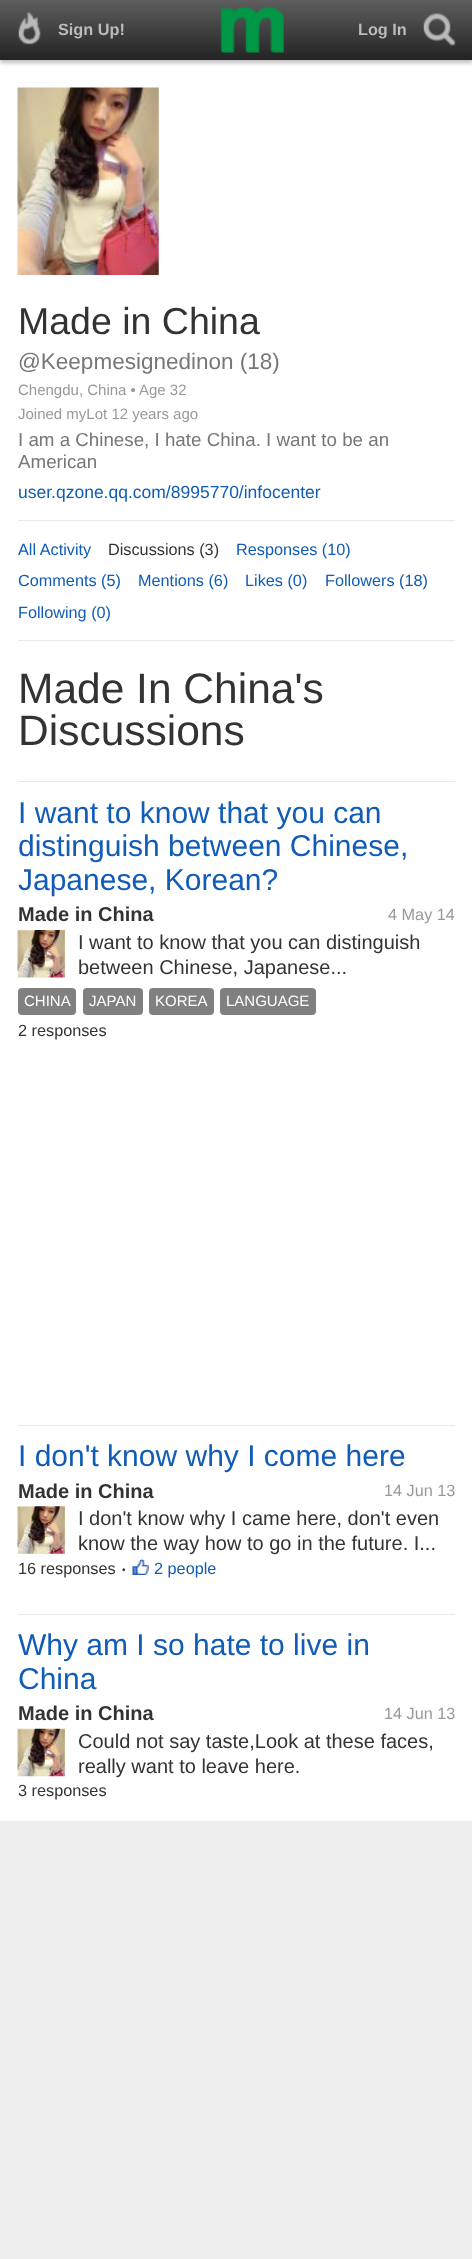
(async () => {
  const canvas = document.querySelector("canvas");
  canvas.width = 472;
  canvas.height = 2259;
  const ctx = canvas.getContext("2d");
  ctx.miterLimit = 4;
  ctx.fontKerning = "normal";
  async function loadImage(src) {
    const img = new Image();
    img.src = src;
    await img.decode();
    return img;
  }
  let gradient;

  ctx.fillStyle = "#eeeeee";
  ctx.fillRect(0, 0, 472, 2259);
  ctx.fillStyle = "#ffffff";
  ctx.fillRect(0, 60, 472, 1761);
  ctx.fillStyle = "rgba(0, 0, 0, 0.25)";
  ctx.filter = "blur(2px)";
  ctx.beginPath();
  ctx.rect(0, 3, 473, 60);
  ctx.fill();
  ctx.filter = "none";
  gradient = ctx.createLinearGradient(236, 0, 236, 60);
  gradient.addColorStop(0, "#5e5e5e");
  gradient.addColorStop(1, "#232323");
  ctx.fillStyle = gradient;
  ctx.fillRect(0, 0, 472, 60);
  ctx.drawImage(await loadImage("img/1.png"), 18, 12, 23, 33);
  ctx.drawImage(await loadImage("img/2.png"), 220, 7, 64, 46);
  ctx.drawImage(await loadImage("img/3.png"), 423, 13, 33, 33);
  ctx.drawImage(await loadImage("img/4.png"), 17, 87, 142, 188);
  for (const [x, y, w, h, color] of [
    [18, 520, 437, 1, "#e8e8e8"],
    [18, 640, 437, 1, "#e8e8e8"],
    [18, 781, 437, 1, "#e8e8e8"],
  ]) {
    ctx.fillStyle = color;
    ctx.fillRect(x, y, w, h);
  }
  ctx.drawImage(await loadImage("img/5.png"), 17, 930, 48, 48);
  ctx.fillStyle = "#808080";
  ctx.beginPath();
  ctx.roundRect(18, 988, 58, 27, 4);
  ctx.fill();
  ctx.beginPath();
  ctx.roundRect(83, 988, 60, 27, 4);
  ctx.fill();
  ctx.beginPath();
  ctx.roundRect(149, 988, 65, 27, 4);
  ctx.fill();
  ctx.beginPath();
  ctx.roundRect(220, 988, 96, 27, 4);
  ctx.fill();
  ctx.fillStyle = "#e8e8e8";
  ctx.fillRect(18, 1425, 437, 1);
  ctx.drawImage(await loadImage("img/6.png"), 17, 1506, 48, 48);
  ctx.drawImage(await loadImage("img/7.png"), 132, 1558, 17, 17);
  ctx.fillRect(18, 1614, 437, 1);
  ctx.drawImage(await loadImage("img/8.png"), 17, 1728, 48, 49);
  ctx.font = "bold 16.25px Liberation Sans";
  ctx.fillStyle = "#bbbbbb";
  ctx.fillText("Sign Up!", 58, 35);
  ctx.fillText("Log In", 358, 35);
  ctx.font = "37.5px Liberation Sans";
  ctx.fillStyle = "#333333";
  ctx.fillText("Made in China", 18, 334);
  ctx.font = "22.5px Liberation Sans";
  ctx.fillStyle = "#777777";
  ctx.fillText("@Keepmesignedinon (18)", 18, 369);
  ctx.font = "15px Liberation Sans";
  ctx.fillStyle = "#999999";
  for (const [text, x, y] of [
    ["Chengdu, China •", 18, 395],
    ["Age 32", 139, 395],
    ["Joined myLot 12 years ago", 18, 419],
  ]) {
    ctx.fillText(text, x, y);
  }
  ctx.font = "18.75px Liberation Sans";
  ctx.fillStyle = "#777777";
  ctx.fillText("I am a Chinese, I hate China. I want to be an", 18, 446);
  ctx.fillText("American", 18, 468);
  ctx.font = "17.5px Liberation Sans";
  ctx.fillStyle = "#105cb6";
  ctx.fillText("user.qzone.qq.com/8995770/infocenter", 18, 498);
  ctx.font = "16.25px Liberation Sans";
  ctx.fillText("All Activity", 18, 555);
  ctx.fillStyle = "#333333";
  ctx.fillText("Discussions (3)", 108, 555);
  ctx.fillStyle = "#105cb6";
  for (const [text, x, y] of [
    ["Responses (10)", 236, 555],
    ["Comments (5)", 18, 586],
    ["Mentions (6)", 138, 586],
    ["Likes (0)", 245, 586],
    ["Followers (18)", 325, 586],
    ["Following (0)", 18, 618],
  ]) {
    ctx.fillText(text, x, y);
  }
  ctx.font = "42.5px Liberation Sans";
  ctx.fillStyle = "#333333";
  ctx.fillText("Made In China's", 18, 703);
  ctx.fillText("Discussions", 18, 745);
  ctx.font = "30px Liberation Sans";
  ctx.fillStyle = "#105cb6";
  for (const [text, x, y] of [
    ["I want to know that you can", 18, 823],
    ["distinguish between Chinese,", 18, 856],
    ["Japanese, Korean?", 18, 890],
  ]) {
    ctx.fillText(text, x, y);
  }
  ctx.font = "bold 20px Liberation Sans";
  ctx.fillStyle = "#333333";
  ctx.fillText("Made in China", 18, 921);
  ctx.font = "16.25px Liberation Sans";
  ctx.fillStyle = "#999999";
  ctx.fillText("4 May 14", 388, 920);
  ctx.font = "20px Liberation Sans";
  ctx.fillStyle = "#333333";
  ctx.fillText("I want to know that you can distinguish", 78, 949);
  ctx.fillText("between Chinese, Japanese...", 78, 974);
  ctx.font = "15px Liberation Sans";
  ctx.fillStyle = "#ffffff";
  for (const [text, x, y] of [
    ["CHINA", 24, 1006],
    ["JAPAN", 89, 1006],
    ["KOREA", 155, 1006],
    ["LANGUAGE", 226, 1006],
  ]) {
    ctx.fillText(text, x, y);
  }
  ctx.font = "16.25px Liberation Sans";
  ctx.fillStyle = "#333333";
  ctx.fillText("2 responses", 18, 1036);
  ctx.font = "30px Liberation Sans";
  ctx.fillStyle = "#105cb6";
  ctx.fillText("I don't know why I come here", 18, 1466);
  ctx.font = "bold 20px Liberation Sans";
  ctx.fillStyle = "#333333";
  ctx.fillText("Made in China", 18, 1498);
  ctx.font = "16.25px Liberation Sans";
  ctx.fillStyle = "#999999";
  ctx.fillText("14 Jun 13", 384, 1496);
  ctx.font = "20px Liberation Sans";
  ctx.fillStyle = "#333333";
  ctx.fillText("I don't know why I came here, don't even", 78, 1525);
  ctx.fillText("know the way how to go in the future. I...", 78, 1550);
  ctx.font = "16.25px Liberation Sans";
  ctx.fillText("16 responses", 18, 1574);
  ctx.font = "10px Liberation Sans";
  ctx.fillText("•", 122, 1573);
  ctx.font = "16.25px Liberation Sans";
  ctx.fillStyle = "#105cb6";
  ctx.fillText("2 people", 154, 1574);
  ctx.font = "30px Liberation Sans";
  ctx.fillText("Why am I so hate to live in", 18, 1655);
  ctx.fillText("China", 18, 1689);
  ctx.font = "bold 20px Liberation Sans";
  ctx.fillStyle = "#333333";
  ctx.fillText("Made in China", 18, 1720);
  ctx.font = "16.25px Liberation Sans";
  ctx.fillStyle = "#999999";
  ctx.fillText("14 Jun 13", 384, 1719);
  ctx.font = "20px Liberation Sans";
  ctx.fillStyle = "#333333";
  ctx.fillText("Could not say taste,Look at these faces,", 78, 1748);
  ctx.fillText("really want to leave here.", 78, 1773);
  ctx.font = "16.25px Liberation Sans";
  ctx.fillText("3 responses", 18, 1796);
})();
